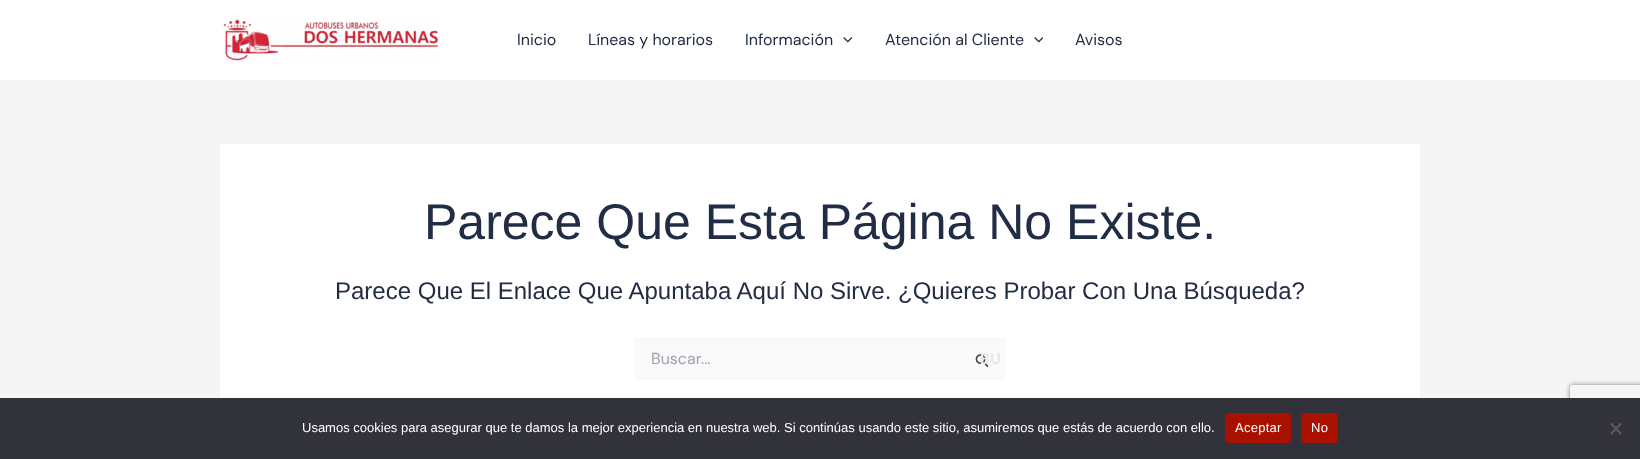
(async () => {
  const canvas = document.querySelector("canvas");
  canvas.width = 1640;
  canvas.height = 459;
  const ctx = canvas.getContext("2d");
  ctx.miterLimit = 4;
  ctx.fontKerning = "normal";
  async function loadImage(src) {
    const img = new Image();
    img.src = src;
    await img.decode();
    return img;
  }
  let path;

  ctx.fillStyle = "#f5f5f5";
  ctx.fillRect(0, 0, 1640, 459);
  ctx.fillStyle = "#ffffff";
  ctx.fillRect(0, 0, 1640, 80);
  ctx.drawImage(await loadImage("img/1.png"), 223, 19, 215, 42);
  ctx.drawImage(await loadImage("img/2.png"), 843, 37, 10, 6);
  ctx.drawImage(await loadImage("img/3.png"), 1034, 37, 9, 6);
  ctx.fillRect(220, 144, 1200, 254);
  ctx.fillStyle = "rgba(0, 0, 0, 0.05)";
  ctx.filter = "blur(1px)";
  ctx.beginPath();
  ctx.roundRect(635, 339, 370, 40, 2);
  ctx.fill();
  ctx.filter = "none";
  ctx.fillStyle = "#fafafa";
  ctx.beginPath();
  ctx.roundRect(635.5, 338.5, 369, 39, 1.5);
  ctx.fill();
  ctx.strokeStyle = "#f7f7f7";
  ctx.stroke();
  ctx.drawImage(await loadImage("img/4.png"), 975, 354, 13, 14);
  ctx.save();
  path = new Path2D("M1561 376H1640V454H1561ZM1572 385H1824C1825 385 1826 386 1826 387V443C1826 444 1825 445 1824 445H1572C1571 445 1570 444 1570 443V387C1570 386 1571 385 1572 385Z");
  ctx.clip(path, "evenodd");
  ctx.fillStyle = "#808080";
  ctx.filter = "blur(2.5px)";
  ctx.beginPath();
  ctx.roundRect(1570, 385, 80, 60, 2);
  ctx.fill();
  ctx.filter = "none";
  ctx.restore();
  ctx.fillStyle = "#32323a";
  ctx.fillRect(0, 398, 1640, 61);
  ctx.fillStyle = "#a81000";
  ctx.beginPath();
  ctx.roundRect(1225, 413, 66, 30, 3);
  ctx.fill();
  ctx.beginPath();
  ctx.roundRect(1301, 413, 37, 30, 3);
  ctx.fill();
  ctx.fillStyle = "#59595d";
  path = new Path2D("M1620.5 422.5L1622 424L1611.5 435L1610 433.5Z");
  ctx.fill(path);
  path = new Path2D("M1610 424L1611.5 422.5L1622 433.5L1620.5 435Z");
  ctx.fill(path);
  ctx.font = "16px DM Sans";
  ctx.fillStyle = "#212d45";
  for (const [text, x, y] of [
    ["Inicio", 517, 45],
    ["Líneas y horarios", 588, 45],
    ["Información", 745, 45],
    ["Atención al Cliente", 885, 45],
    ["Avisos", 1075, 45],
  ]) {
    ctx.fillText(text, x, y);
  }
  ctx.font = "50px Liberation Sans";
  ctx.fillText("Parece Que Esta Página No Existe.", 424, 239);
  ctx.font = "24px Liberation Sans";
  ctx.fillText("Parece Que El Enlace Que Apuntaba Aquí No Sirve. ¿Quieres Probar Con Una Búsqueda?", 335, 299);
  ctx.font = "16px DM Sans";
  ctx.fillStyle = "#9ca3af";
  ctx.fillText("Buscar...", 651, 364);
  ctx.font = "bold 15px Inter";
  ctx.fillStyle = "#e8e8e8";
  ctx.fillText("BU", 980, 364);
  ctx.font = "13px Liberation Sans";
  ctx.fillStyle = "#ffffff";
  ctx.fillText("Usamos cookies para asegurar que te damos la mejor experiencia en nuestra web. Si continúas usando este sitio, asumiremos que estás de acuerdo con ello.", 302, 432);
  ctx.letterSpacing = "0.25px";
  ctx.fillText("Aceptar", 1235, 432);
  ctx.fillText("No", 1311, 432);
})();
